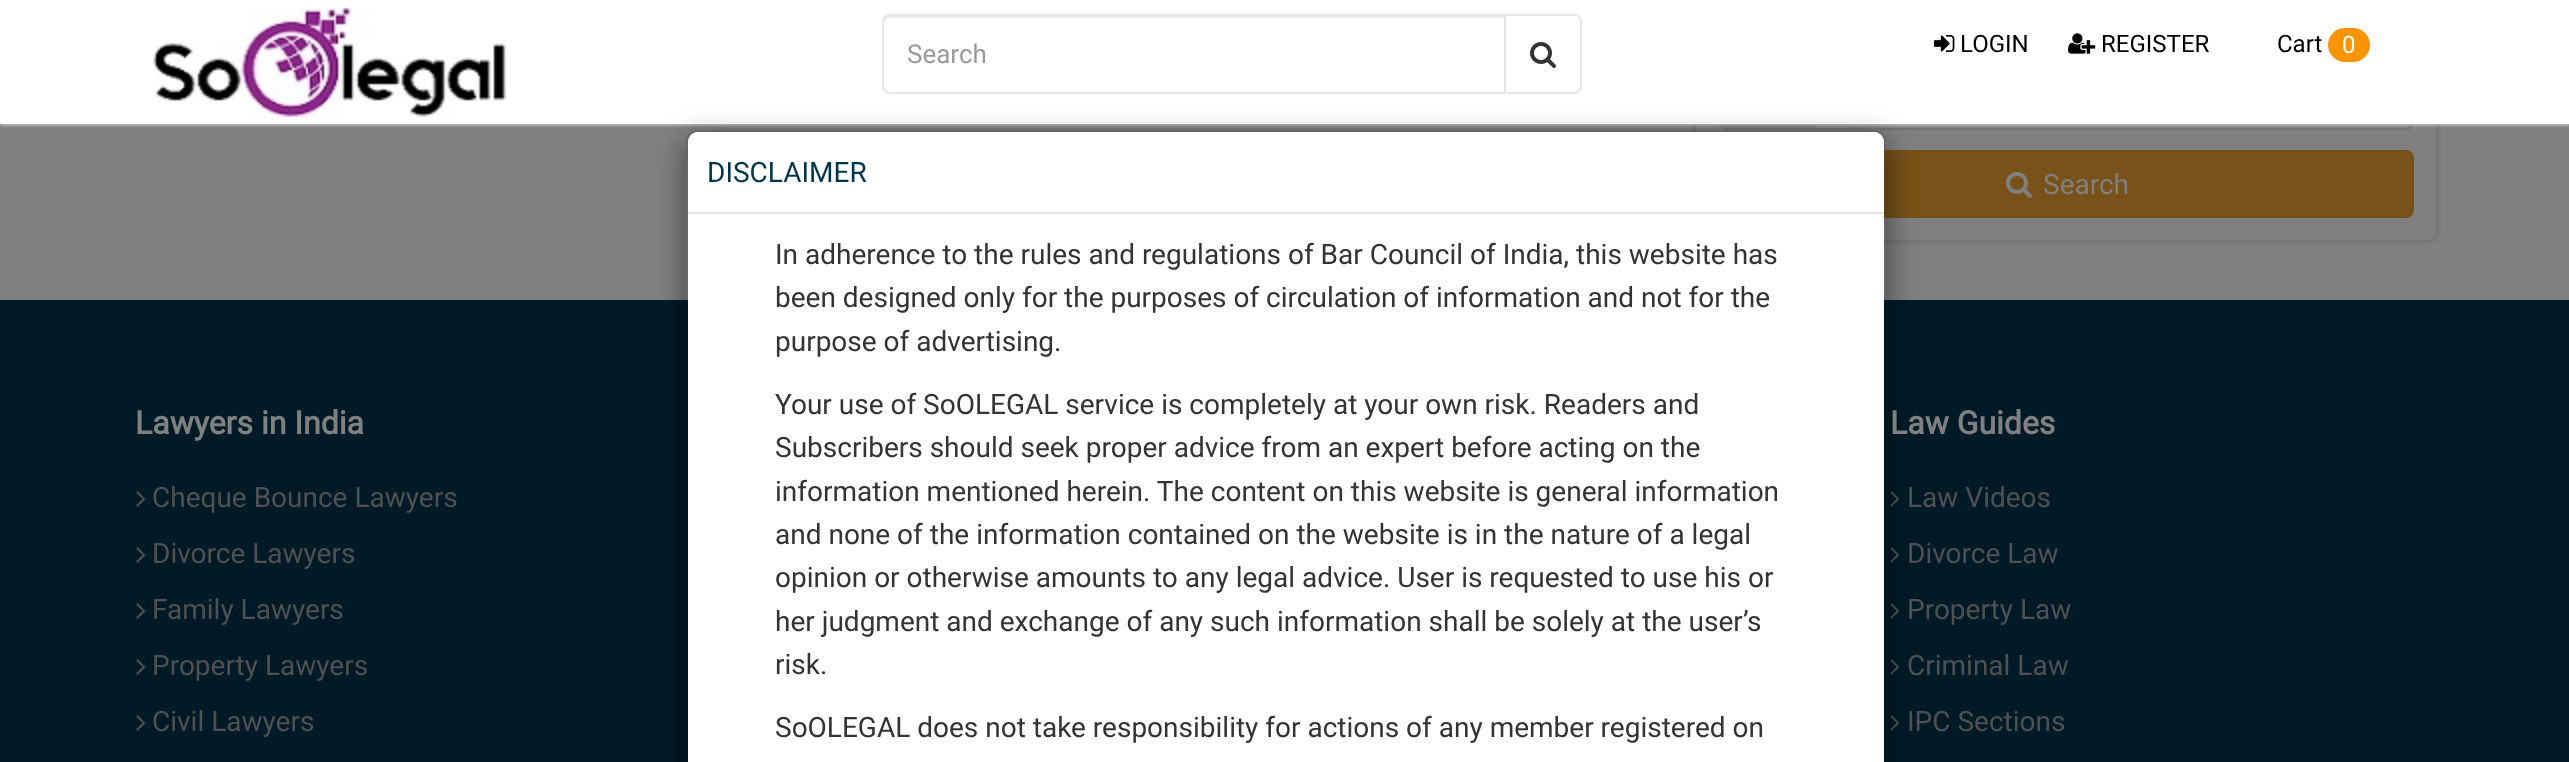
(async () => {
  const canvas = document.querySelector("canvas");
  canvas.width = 2569;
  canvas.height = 762;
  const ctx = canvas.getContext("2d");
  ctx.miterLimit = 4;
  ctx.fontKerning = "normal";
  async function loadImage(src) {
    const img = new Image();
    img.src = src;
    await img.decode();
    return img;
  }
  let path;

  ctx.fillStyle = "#808080";
  ctx.fillRect(0, 0, 2569, 762);
  ctx.fillStyle = "rgba(0, 0, 0, 0.2)";
  ctx.filter = "blur(3px)";
  ctx.beginPath();
  ctx.roundRect(1696, -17, 740, 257, 8);
  ctx.fill();
  ctx.filter = "none";
  ctx.fillStyle = "#808080";
  ctx.beginPath();
  ctx.roundRect(1696, -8, 740, 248, 8);
  ctx.fill();
  ctx.fillStyle = "#777777";
  ctx.beginPath();
  ctx.roundRect(1718, 62, 96, 68, [8, 0, 0, 8]);
  ctx.fill();
  ctx.fillStyle = "#737373";
  path = new Path2D("M1726 62H1814V130H1726C1722 130 1718 126 1718 122V70C1718 66 1722 62 1726 62ZM1726 64H1814V128H1726C1723 128 1720 125 1720 122V70C1720 67 1723 64 1726 64Z");
  ctx.fill(path, "evenodd");
  ctx.beginPath();
  ctx.roundRect(1815, 63, 598, 66, [0, 7, 7, 0]);
  ctx.strokeStyle = "#737373";
  ctx.lineWidth = 2;
  ctx.stroke();
  ctx.fillStyle = "#ffffff";
  ctx.filter = "blur(2px)";
  ctx.beginPath();
  ctx.rect(0, 0, 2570, 124);
  ctx.fill();
  ctx.filter = "none";
  ctx.fillRect(0, 0, 2569, 124);
  ctx.drawImage(await loadImage("img/1.png"), 153, 8, 354, 110);
  ctx.fillStyle = "#ececec";
  path = new Path2D("M890 18H1504V16H890C885 16 884 20 884 24C884 21 887 18 890 18Z");
  ctx.fill(path);
  ctx.beginPath();
  ctx.roundRect(883, 15, 622, 78, [7, 0, 0, 7]);
  ctx.strokeStyle = "#e6e6e6";
  ctx.stroke();
  ctx.fillStyle = "#ffffff";
  ctx.beginPath();
  ctx.roundRect(1505, 15, 76, 78, [0, 7, 7, 0]);
  ctx.fill();
  ctx.stroke();
  ctx.drawImage(await loadImage("img/2.png"), 1530, 42, 26, 26);
  ctx.drawImage(await loadImage("img/3.png"), 1934, 35, 21, 17);
  ctx.drawImage(await loadImage("img/4.png"), 2068, 33, 28, 21);
  ctx.fillStyle = "#f89406";
  ctx.beginPath();
  ctx.roundRect(2328, 28, 42, 34, 17);
  ctx.fill();
  ctx.fillStyle = "#785219";
  ctx.beginPath();
  ctx.roundRect(1719, 151, 694, 66, 7);
  ctx.fill();
  ctx.strokeStyle = "#77511b";
  ctx.stroke();
  ctx.fillStyle = "#001b27";
  ctx.fillRect(0, 300, 2569, 462);
  ctx.drawImage(await loadImage("img/6.png"), 1890, 491, 10, 16);
  ctx.drawImage(await loadImage("img/6.png"), 1890, 547, 10, 16);
  ctx.drawImage(await loadImage("img/6.png"), 1890, 603, 10, 16);
  ctx.drawImage(await loadImage("img/6.png"), 1890, 659, 10, 16);
  ctx.drawImage(await loadImage("img/6.png"), 1890, 715, 10, 16);
  ctx.save();
  path = new Path2D("M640 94H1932V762H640ZM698 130H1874C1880.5 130 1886 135.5 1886 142V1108C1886 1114.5 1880.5 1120 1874 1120H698C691.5 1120 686 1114.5 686 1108V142C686 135.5 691.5 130 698 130Z");
  ctx.clip(path, "evenodd");
  ctx.fillStyle = "rgba(0, 0, 0, 0.5)";
  ctx.filter = "blur(15px)";
  ctx.beginPath();
  ctx.roundRect(686, 140, 1200, 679, 12);
  ctx.fill();
  ctx.filter = "none";
  ctx.restore();
  ctx.fillStyle = "#ffffff";
  ctx.beginPath();
  ctx.roundRect(688, 132, 1196, 630, [10, 10, 0, 0]);
  ctx.fill();
  ctx.beginPath();
  ctx.roundRect(687, 131, 1198, 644, 11);
  ctx.strokeStyle = "rgba(0, 0, 0, 0.2)";
  ctx.stroke();
  ctx.beginPath();
  ctx.roundRect(688, 132, 1196, 82, [10, 10, 0, 0]);
  ctx.fill();
  ctx.fillStyle = "#e5e5e5";
  ctx.fillRect(688, 212, 1196, 2);
  ctx.drawImage(await loadImage("img/5.png"), 2006, 172, 26, 26);
  ctx.drawImage(await loadImage("img/6.png"), 136, 491, 10, 16);
  ctx.drawImage(await loadImage("img/6.png"), 136, 547, 10, 16);
  ctx.drawImage(await loadImage("img/6.png"), 136, 603, 10, 16);
  ctx.drawImage(await loadImage("img/6.png"), 136, 659, 10, 16);
  ctx.drawImage(await loadImage("img/6.png"), 136, 715, 10, 16);
  ctx.font = "26px Roboto";
  ctx.fillStyle = "#999999";
  ctx.fillText("Search", 907, 63);
  ctx.font = "24px Roboto";
  ctx.fillStyle = "#000000";
  for (const [text, x, y] of [
    ["LOGIN", 1960, 52],
    ["REGISTER", 2101, 52],
    ["Cart", 2277, 52],
  ]) {
    ctx.fillText(text, x, y);
  }
  ctx.fillStyle = "#ffffff";
  ctx.fillText("0", 2342, 53);
  ctx.font = "28px Roboto";
  ctx.fillStyle = "#00354e";
  ctx.fillText("DISCLAIMER", 707, 182);
  ctx.fillStyle = "#333333";
  for (const [text, x, y] of [
    ["In adherence to the rules and regulations of Bar Council of India, this website has", 775, 264],
    ["been designed only for the purposes of circulation of information and not for the", 775, 307],
    ["purpose of advertising.", 775, 351],
    ["Your use of SoOLEGAL service is completely at your own risk. Readers and", 775, 414],
    ["Subscribers should seek proper advice from an expert before acting on the", 775, 457],
    ["information mentioned herein. The content on this website is general information", 775, 501],
    ["and none of the information contained on the website is in the nature of a legal", 775, 544],
    ["opinion or otherwise amounts to any legal advice. User is requested to use his or", 775, 587],
    ["her judgment and exchange of any such information shall be solely at the user’s", 775, 631],
    ["risk.", 775, 674],
    ["SoOLEGAL does not take responsibility for actions of any member registered on", 775, 737],
  ]) {
    ctx.fillText(text, x, y);
  }
  ctx.fillStyle = "#808080";
  ctx.fillText("Search", 2043, 194);
  ctx.font = "bold 32px Roboto";
  ctx.fillText("Lawyers in India", 135, 434);
  ctx.font = "28px Roboto";
  ctx.fillStyle = "#505050";
  for (const [text, x, y] of [
    ["Cheque Bounce Lawyers", 152, 507],
    ["Divorce Lawyers", 152, 563],
    ["Family Lawyers", 152, 619],
    ["Property Lawyers", 152, 675],
    ["Civil Lawyers", 152, 731],
  ]) {
    ctx.fillText(text, x, y);
  }
  ctx.font = "bold 32px Roboto";
  ctx.fillStyle = "#808080";
  ctx.fillText("Law Guides", 1890, 434);
  ctx.font = "28px Roboto";
  ctx.fillStyle = "#505050";
  for (const [text, x, y] of [
    ["Law Videos", 1907, 507],
    ["Divorce Law", 1907, 563],
    ["Property Law", 1907, 619],
    ["Criminal Law", 1907, 675],
    ["IPC Sections", 1907, 731],
  ]) {
    ctx.fillText(text, x, y);
  }
})();
